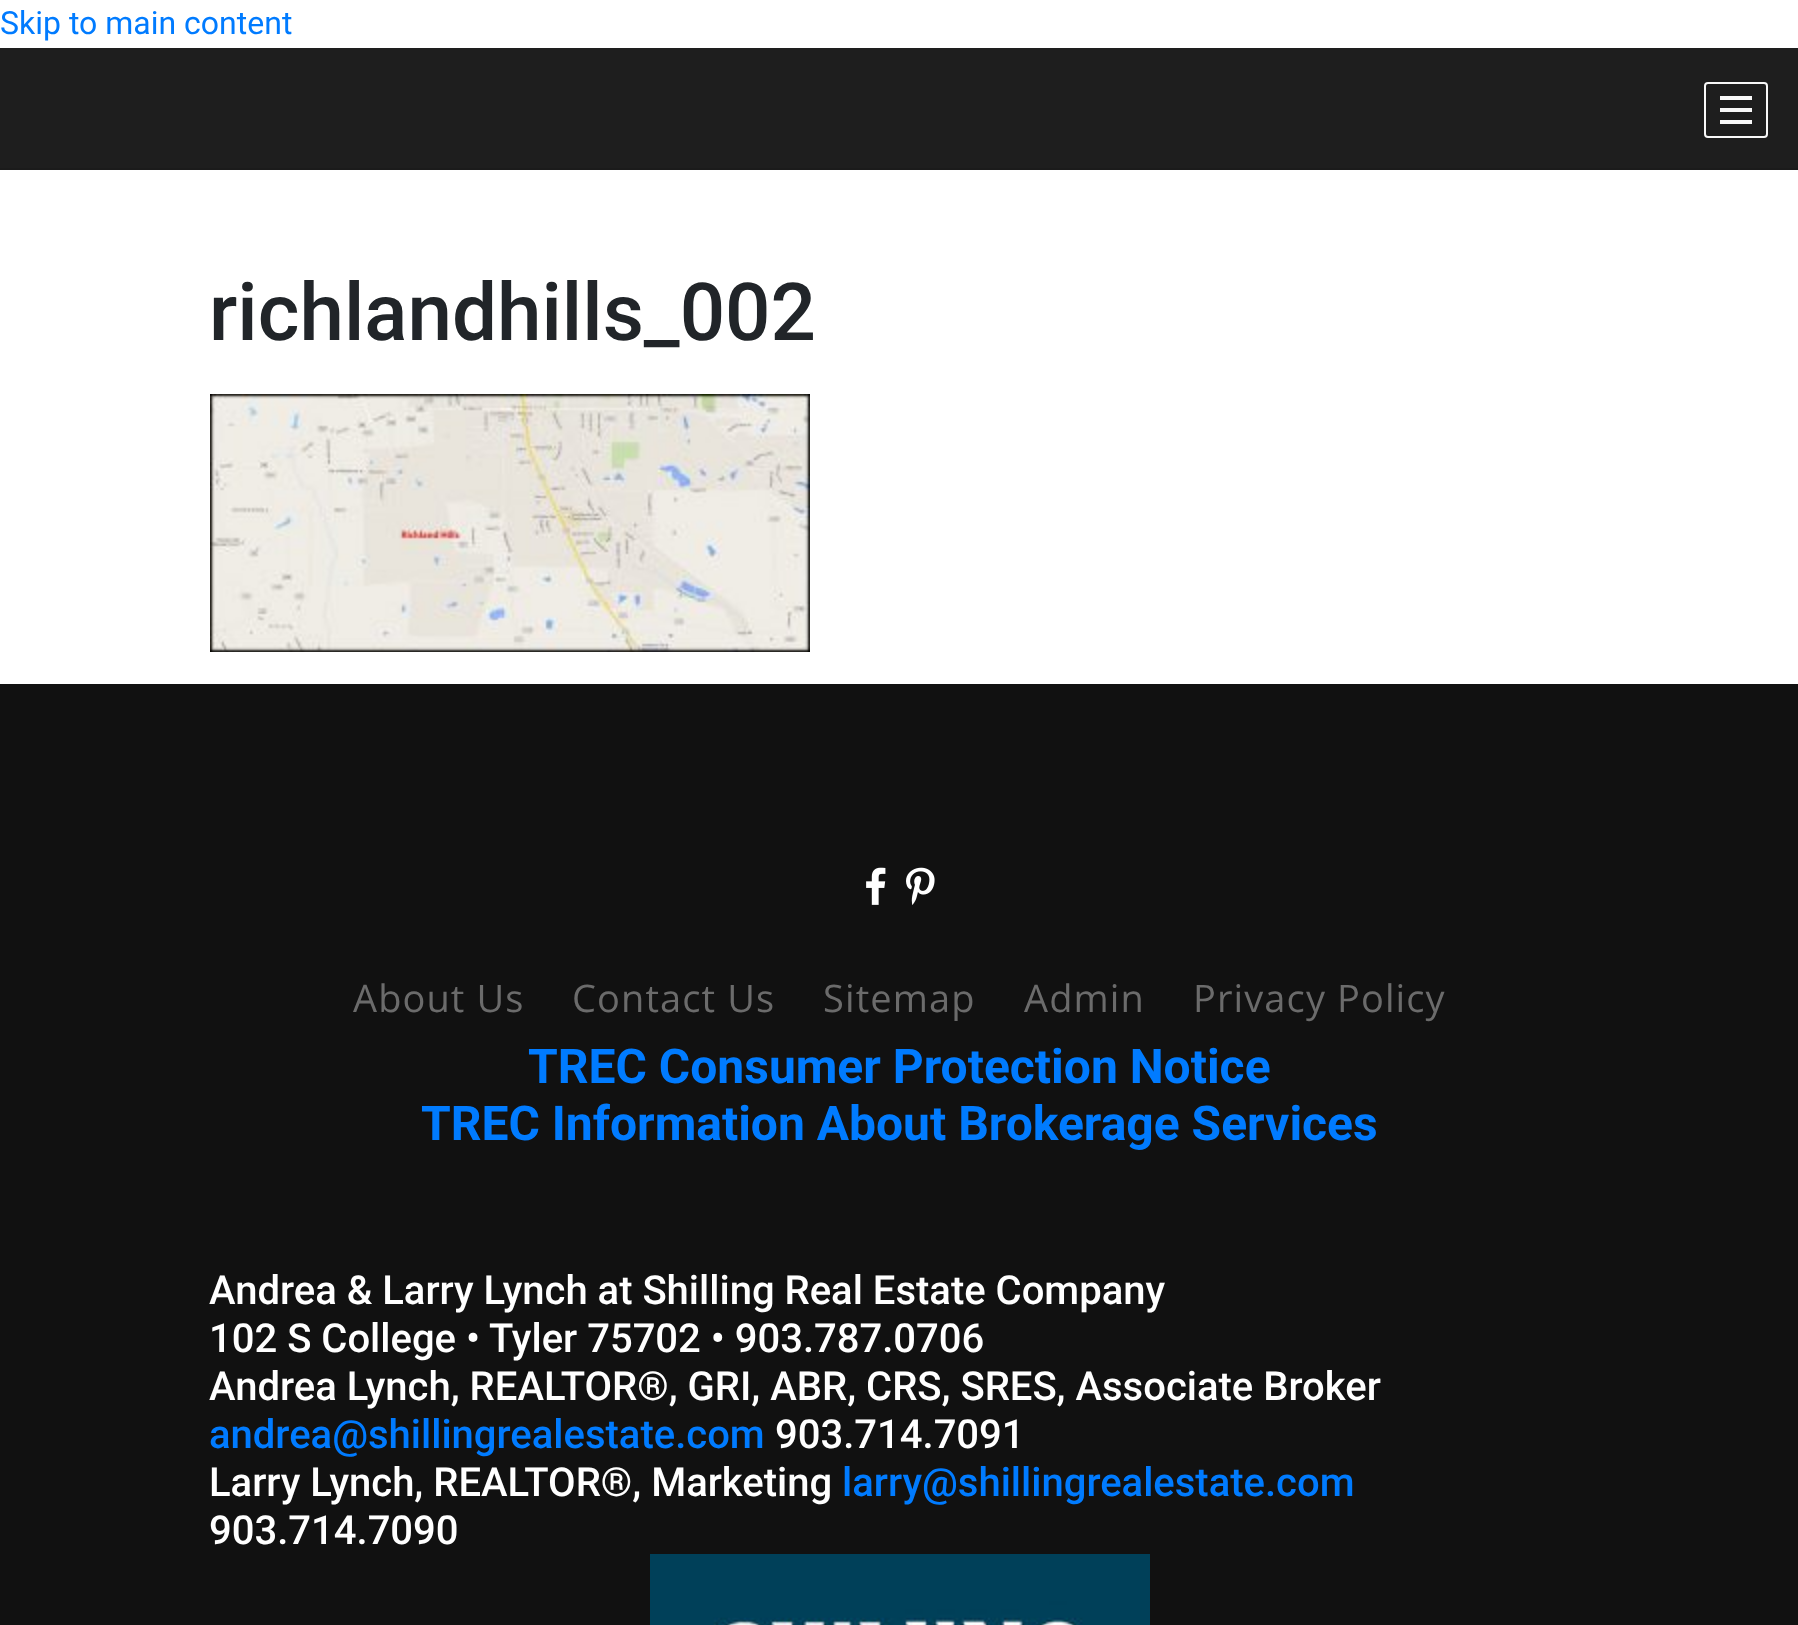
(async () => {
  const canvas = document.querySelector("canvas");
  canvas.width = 1798;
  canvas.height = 1625;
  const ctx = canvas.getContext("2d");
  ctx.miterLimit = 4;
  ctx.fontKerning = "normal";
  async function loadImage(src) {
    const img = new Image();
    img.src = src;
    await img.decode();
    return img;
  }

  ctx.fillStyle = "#ffffff";
  ctx.fillRect(0, 0, 1798, 1625);
  ctx.fillStyle = "#1e1e1e";
  ctx.fillRect(0, 48, 1798, 120);
  ctx.fillStyle = "#1b1b1b";
  ctx.fillRect(0, 168, 1798, 2);
  ctx.beginPath();
  ctx.roundRect(1705, 83, 62, 54, 3);
  ctx.strokeStyle = "#f8f8f8";
  ctx.lineWidth = 2;
  ctx.stroke();
  for (const [x, y, w, h, color] of [
    [1720, 96, 32, 4, "#f8f8f8"],
    [1720, 108, 32, 4, "#f8f8f8"],
    [1720, 120, 32, 4, "#f8f8f8"],
  ]) {
    ctx.fillStyle = color;
    ctx.fillRect(x, y, w, h);
  }
  ctx.drawImage(await loadImage("img/1.png"), 210, 394, 600, 258);
  ctx.fillStyle = "#111111";
  ctx.fillRect(0, 684, 1798, 941);
  ctx.drawImage(await loadImage("img/2.png"), 866, 867, 20, 38);
  ctx.drawImage(await loadImage("img/3.png"), 906, 867, 29, 38);
  ctx.drawImage(await loadImage("img/4.png"), 650, 1554, 500, 71);
  ctx.font = "32px Roboto";
  ctx.fillStyle = "#007bff";
  ctx.fillText("Skip to main content", 0, 34);
  ctx.font = "500 80px Roboto";
  ctx.fillStyle = "#212529";
  ctx.fillText("richlandhills_002", 209, 340);
  ctx.letterSpacing = "1.1px";
  ctx.font = "38px Open Sans";
  ctx.fillStyle = "#6b6b6b";
  for (const [text, x, y] of [
    ["About Us", 353, 1012],
    ["Contact Us", 572, 1012],
    ["Sitemap", 823, 1012],
    ["Admin", 1024, 1012],
    ["Privacy Policy", 1193, 1012],
  ]) {
    ctx.fillText(text, x, y);
  }
  ctx.letterSpacing = "0px";
  ctx.font = "bold 48px Roboto";
  ctx.fillStyle = "#007bff";
  ctx.fillText("TREC Consumer Protection Notice", 528, 1083);
  ctx.fillText("TREC Information About Brokerage Services", 421, 1140);
  ctx.font = "500 40px Roboto";
  ctx.fillStyle = "#ffffff";
  for (const [text, x, y] of [
    ["Andrea & Larry Lynch at Shilling Real Estate Company", 209, 1304],
    ["102 S College • Tyler 75702 • 903.787.0706", 209, 1352],
    ["Andrea Lynch, REALTOR®, GRI, ABR, CRS, SRES, Associate Broker", 209, 1400],
  ]) {
    ctx.fillText(text, x, y);
  }
  ctx.fillStyle = "#007bff";
  ctx.fillText("andrea@shillingrealestate.com", 209, 1448);
  ctx.fillStyle = "#ffffff";
  ctx.fillText("903.714.7091", 775, 1448);
  ctx.fillText("Larry Lynch, REALTOR®, Marketing", 209, 1496);
  ctx.fillStyle = "#007bff";
  ctx.fillText("larry@shillingrealestate.com", 842, 1496);
  ctx.fillStyle = "#ffffff";
  ctx.fillText("903.714.7090", 209, 1544);
})();
